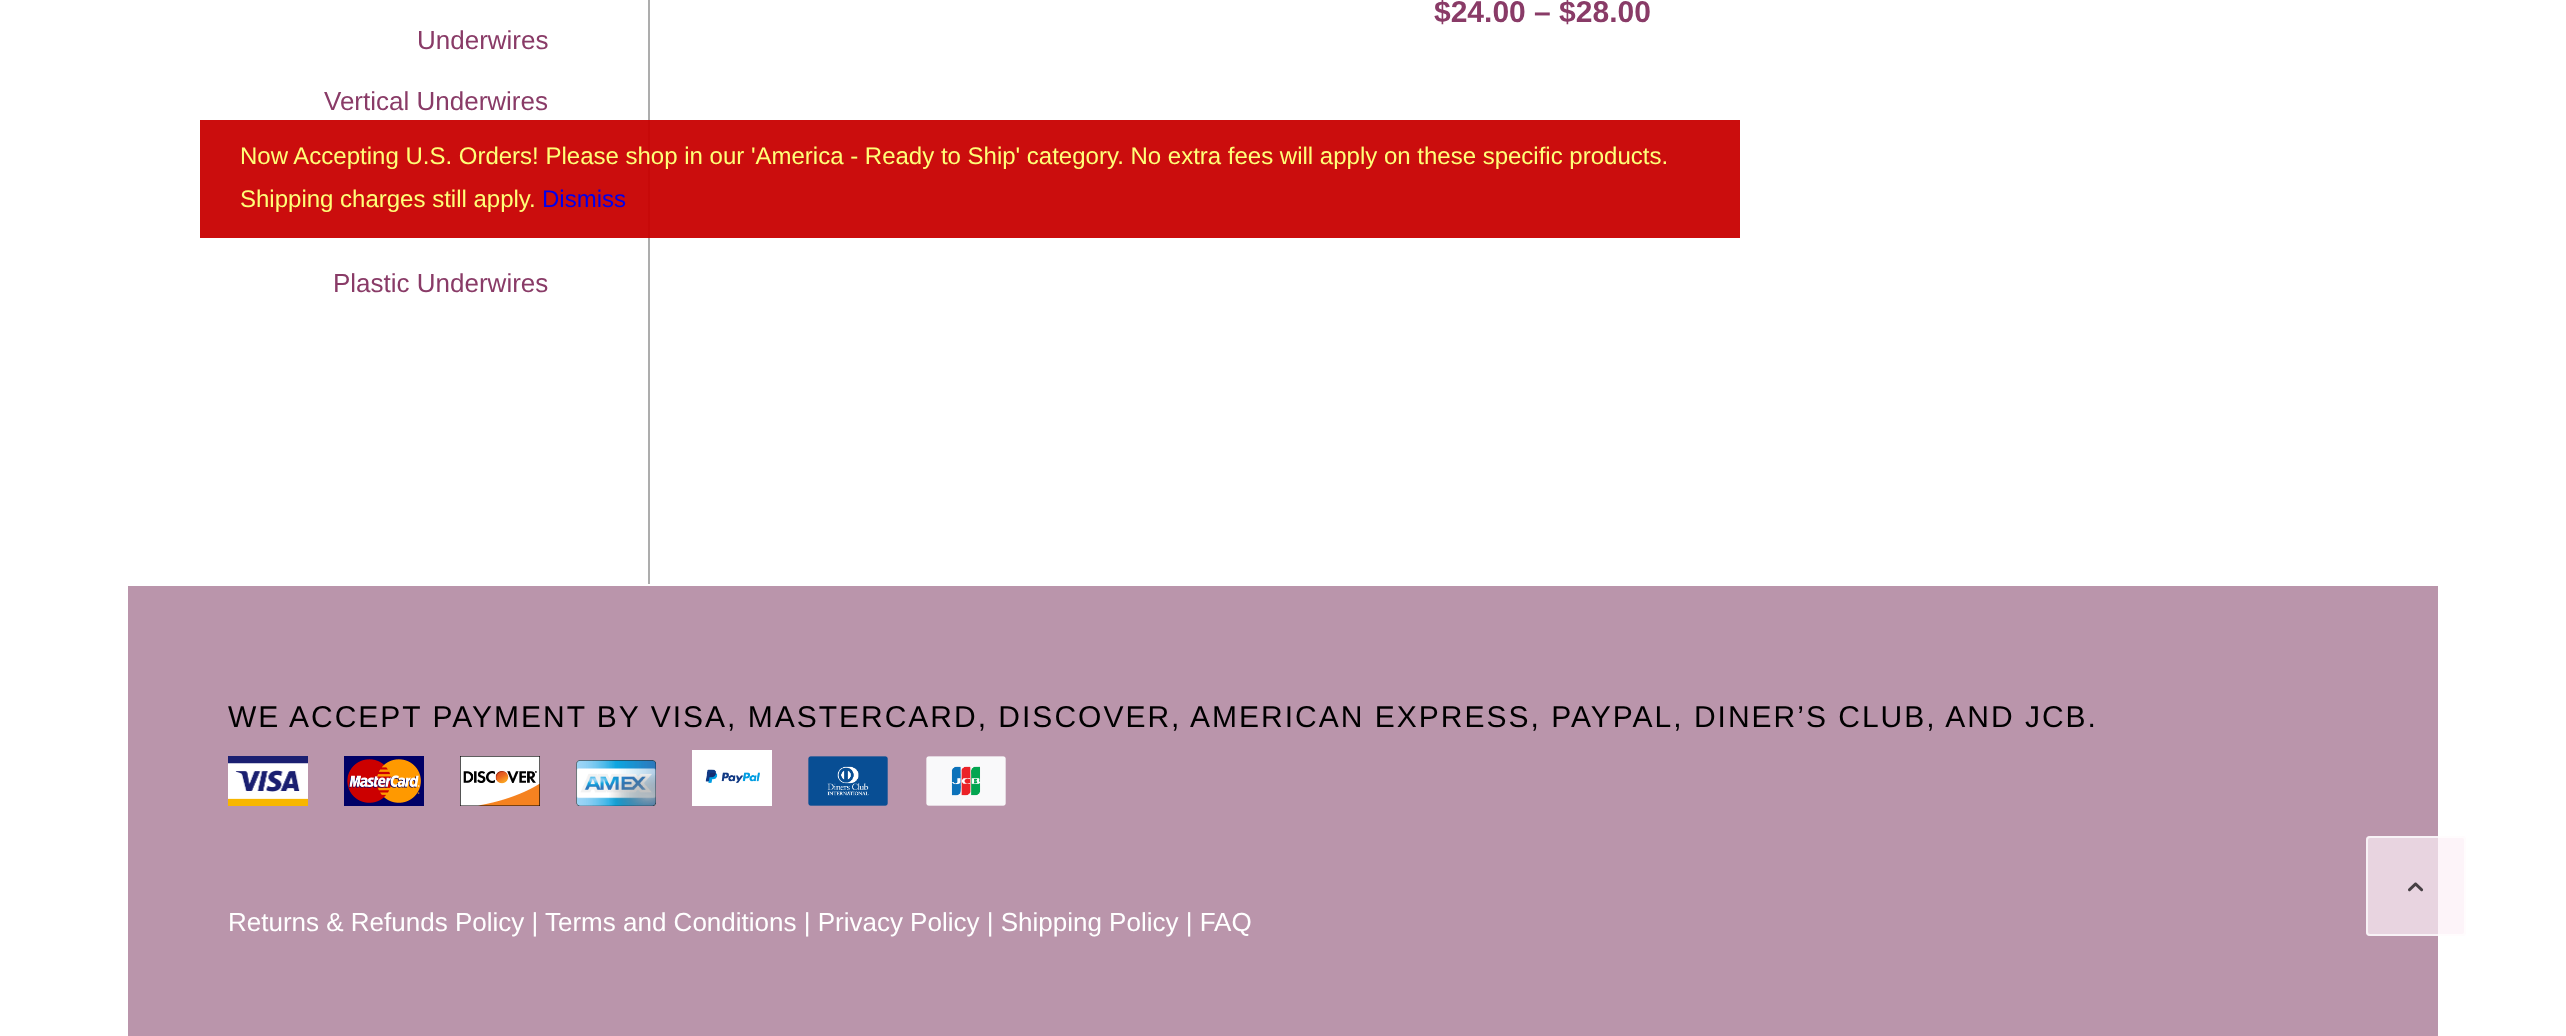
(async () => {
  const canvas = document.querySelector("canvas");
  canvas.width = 2566;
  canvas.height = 1036;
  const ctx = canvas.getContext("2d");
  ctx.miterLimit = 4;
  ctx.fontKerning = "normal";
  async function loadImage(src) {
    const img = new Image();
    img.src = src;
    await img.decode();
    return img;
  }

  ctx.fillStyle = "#ffffff";
  ctx.fillRect(0, 0, 2566, 1036);
  for (const [x, y, w, h, color] of [
    [200, 120, 1540, 118, "#cb0d0d"],
    [648, 0, 2, 584, "#adadad"],
    [648, 120, 2, 118, "#c70909"],
    [128, 586, 2310, 450, "#ba95ab"],
  ]) {
    ctx.fillStyle = color;
    ctx.fillRect(x, y, w, h);
  }
  ctx.drawImage(await loadImage("img/1.png"), 228, 756, 80, 50);
  ctx.drawImage(await loadImage("img/2.png"), 344, 756, 80, 50);
  ctx.drawImage(await loadImage("img/3.png"), 460, 756, 80, 50);
  ctx.drawImage(await loadImage("img/4.png"), 576, 760, 80, 46);
  ctx.drawImage(await loadImage("img/5.png"), 692, 750, 80, 56);
  ctx.drawImage(await loadImage("img/6.png"), 808, 756, 80, 50);
  ctx.drawImage(await loadImage("img/7.png"), 926, 756, 80, 50);
  ctx.fillStyle = "rgba(252, 239, 246, 0.7)";
  ctx.beginPath();
  ctx.roundRect(2366, 836, 100, 100, 4);
  ctx.fill();
  ctx.beginPath();
  ctx.roundRect(2367, 837, 98, 98, 3);
  ctx.strokeStyle = "rgba(255, 255, 255, 0.7)";
  ctx.lineWidth = 2;
  ctx.stroke();
  ctx.drawImage(await loadImage("img/8.png"), 2408, 882, 16, 10);
  ctx.font = "bold 30px Liberation Sans";
  ctx.fillStyle = "#893b67";
  ctx.fillText("$24.00 – $28.00", 1434, 22);
  ctx.font = "26px Liberation Sans";
  for (const [text, x, y] of [
    ["Underwires", 417, 49],
    ["Vertical Underwires", 324, 110],
    ["Plastic Underwires", 333, 292],
  ]) {
    ctx.fillText(text, x, y);
  }
  ctx.letterSpacing = "2px";
  ctx.font = "30px Liberation Sans";
  ctx.fillStyle = "#000000";
  ctx.fillText("WE ACCEPT PAYMENT BY VISA, MASTERCARD, DISCOVER, AMERICAN EXPRESS, PAYPAL, DINER’S CLUB, AND JCB.", 228, 727);
  ctx.letterSpacing = "0px";
  ctx.font = "26px Liberation Sans";
  ctx.fillStyle = "#ffffff";
  ctx.fillText("Returns & Refunds Policy |", 228, 931);
  ctx.fillText("Terms and Conditions | Privacy Policy | Shipping Policy | FAQ", 545, 931);
  ctx.font = "24px Liberation Sans";
  ctx.fillStyle = "#ffff78";
  ctx.fillText("Now Accepting U.S. Orders! Please shop in our 'America - Ready to Ship' category. No extra fees will apply on these specific products.", 240, 164);
  ctx.fillText("Shipping charges still apply.", 240, 207);
  ctx.fillStyle = "#0000ee";
  ctx.fillText("Dismiss", 542, 207);
})();
